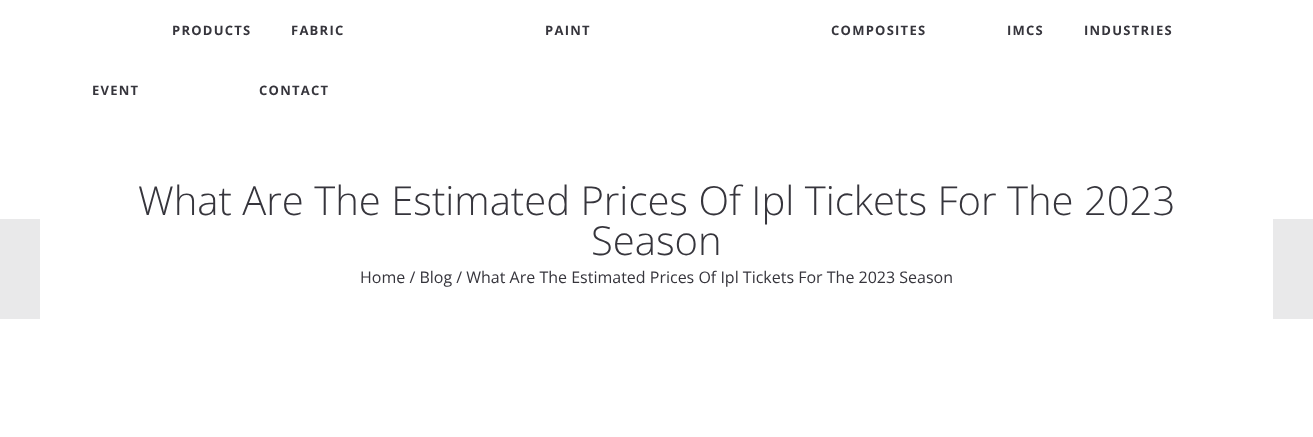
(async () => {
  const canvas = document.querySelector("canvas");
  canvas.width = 1313;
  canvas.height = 437;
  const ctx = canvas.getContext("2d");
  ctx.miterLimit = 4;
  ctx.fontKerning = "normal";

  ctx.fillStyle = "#ffffff";
  ctx.fillRect(0, 0, 1313, 437);
  ctx.fillStyle = "#e9e9ea";
  ctx.fillRect(0, 219, 40, 100);
  ctx.fillRect(1273, 219, 40, 100);
  ctx.letterSpacing = "1.25px";
  ctx.font = "bold 13px Open Sans";
  ctx.fillStyle = "#36353c";
  for (const [text, x, y] of [
    ["PRODUCTS", 172, 35],
    ["FABRIC", 291, 35],
    ["PAINT", 545, 35],
    ["COMPOSITES", 831, 35],
    ["IMCS", 1007, 35],
    ["INDUSTRIES", 1084, 35],
    ["EVENT", 92, 95],
    ["CONTACT", 259, 95],
  ]) {
    ctx.fillText(text, x, y);
  }
  ctx.letterSpacing = "0px";
  ctx.font = "300 40px Open Sans";
  ctx.fillText("What Are The Estimated Prices Of Ipl Tickets For The 2023", 138, 215);
  ctx.fillText("Season", 591, 255);
  ctx.font = "16px Open Sans";
  ctx.fillText("Home / Blog / What Are The Estimated Prices Of Ipl Tickets For The 2023 Season", 360, 283);
})();
